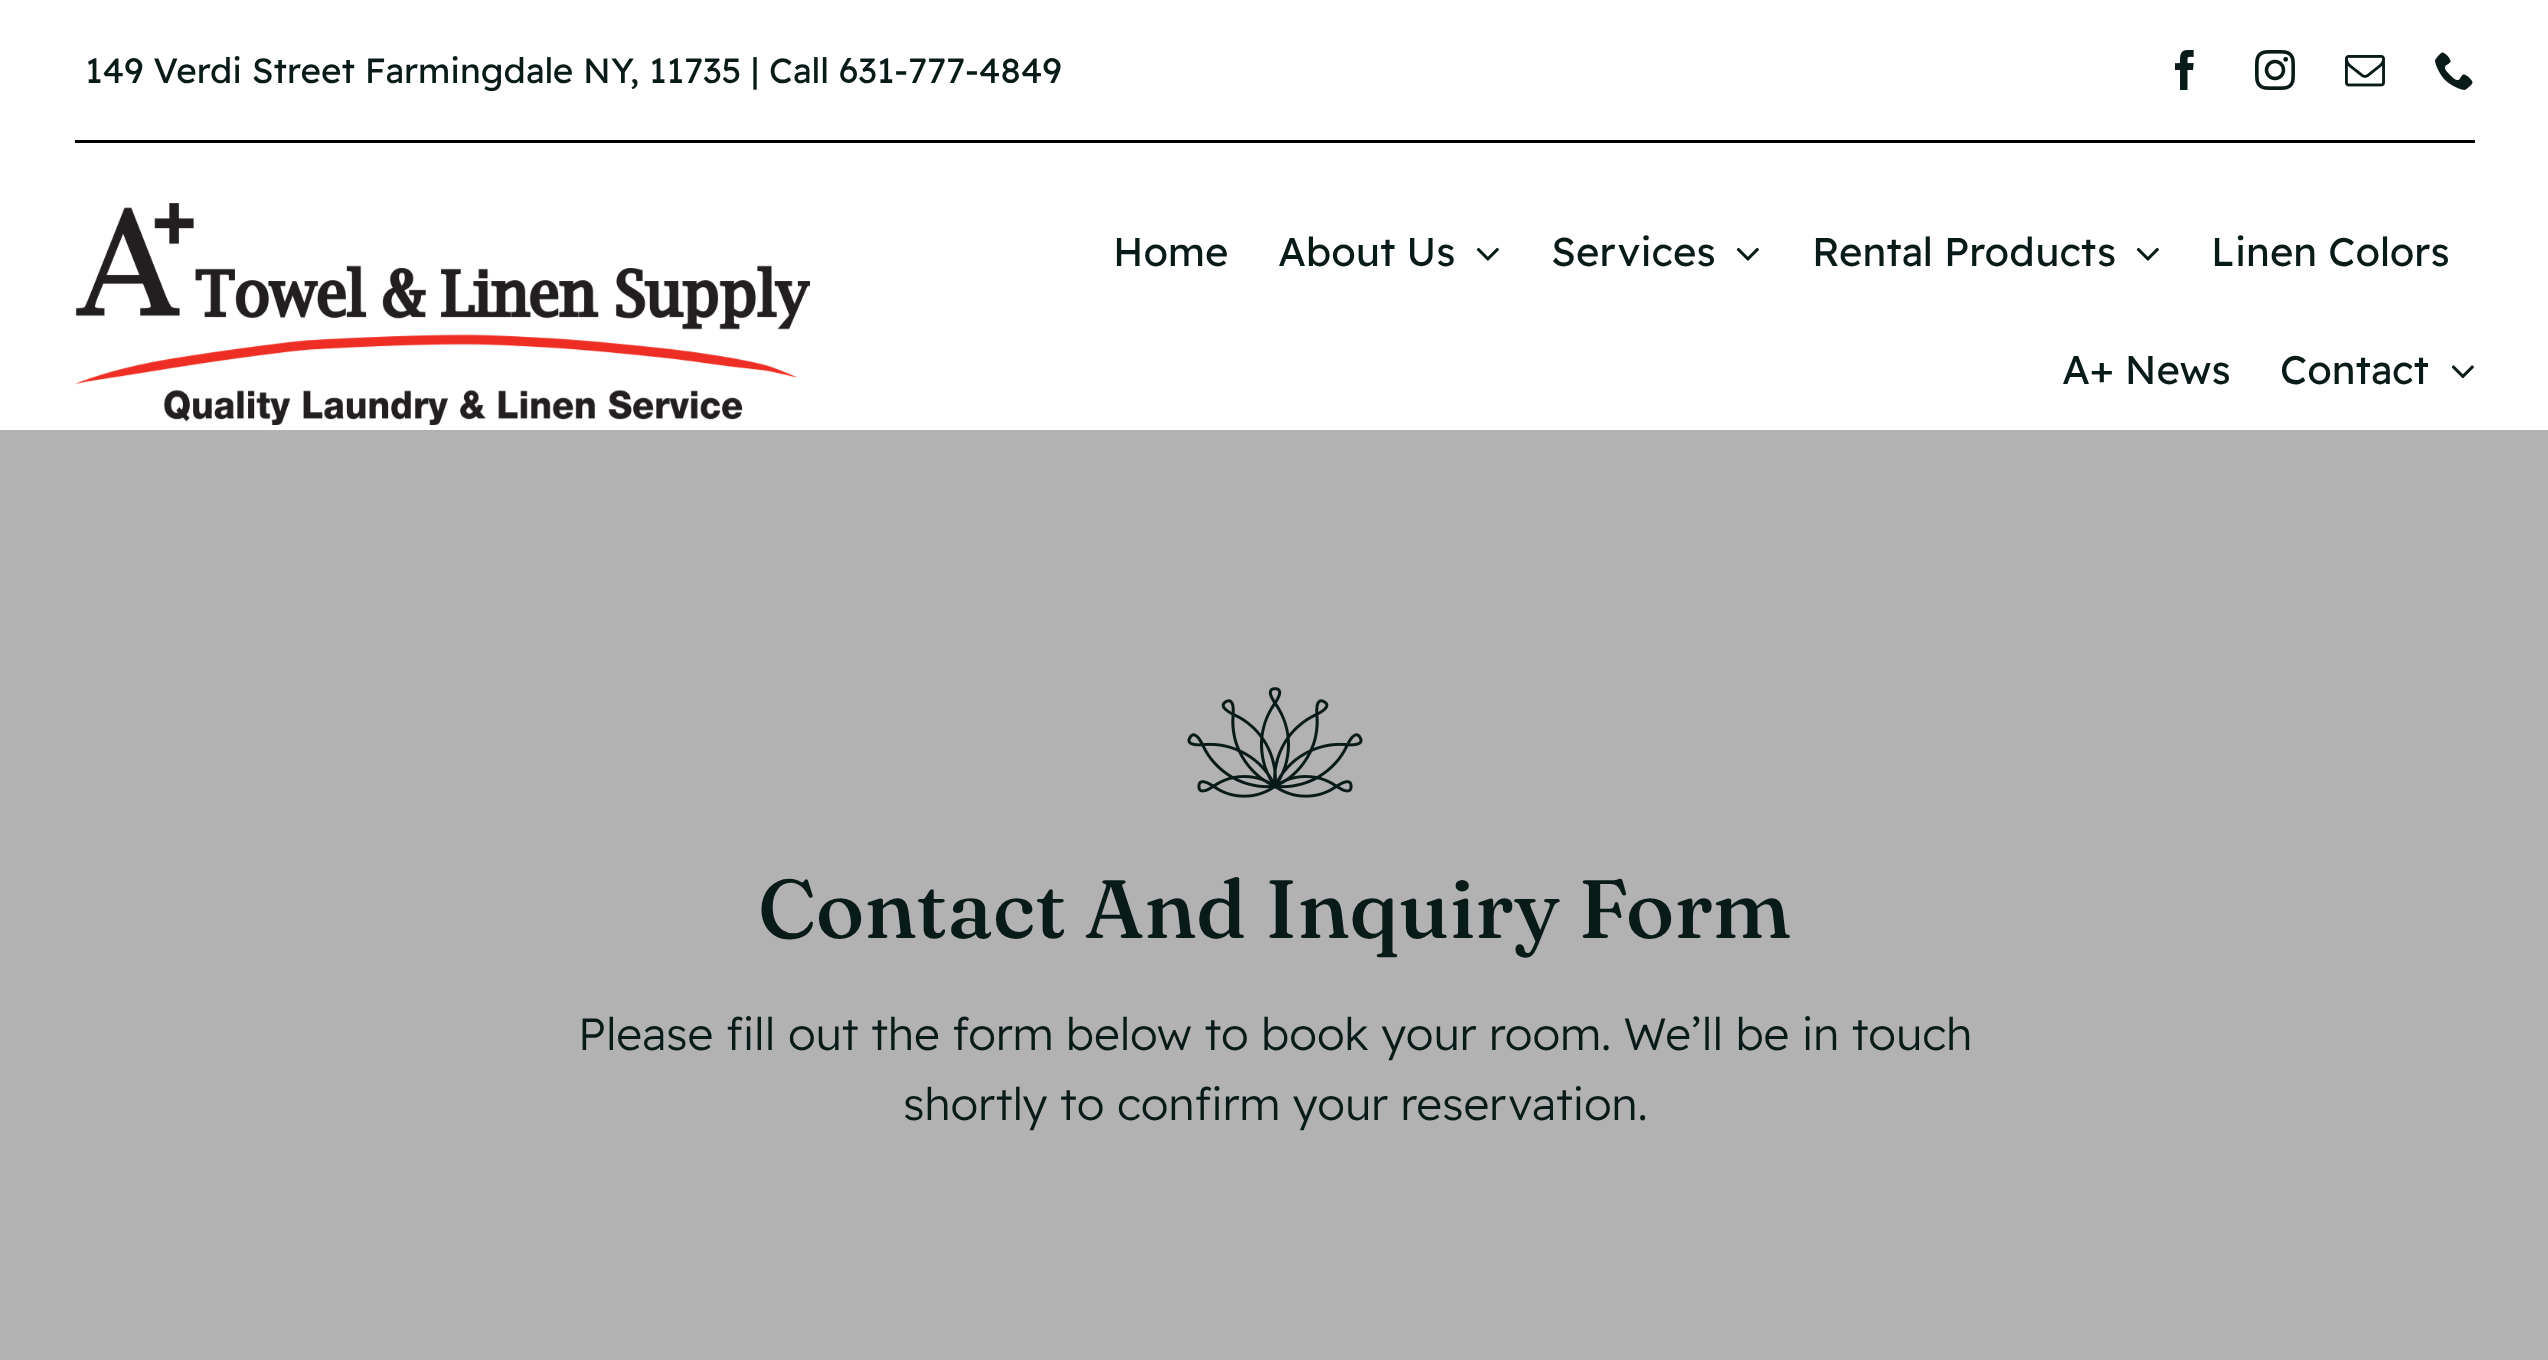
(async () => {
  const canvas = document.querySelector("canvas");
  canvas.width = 2548;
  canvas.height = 1360;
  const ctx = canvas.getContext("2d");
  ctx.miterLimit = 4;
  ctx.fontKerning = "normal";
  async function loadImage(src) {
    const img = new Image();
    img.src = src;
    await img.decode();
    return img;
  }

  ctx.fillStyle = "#ffffff";
  ctx.fillRect(0, 0, 2548, 1360);
  ctx.drawImage(await loadImage("img/1.png"), 2175, 50, 19, 40);
  ctx.drawImage(await loadImage("img/2.png"), 2255, 50, 40, 40);
  ctx.drawImage(await loadImage("img/3.png"), 2345, 55, 40, 32);
  ctx.drawImage(await loadImage("img/4.png"), 2435, 52, 38, 38);
  ctx.fillStyle = "#000000";
  ctx.fillRect(75, 140, 2400, 3);
  ctx.drawImage(await loadImage("img/5.png"), 75, 203, 735, 222);
  ctx.drawImage(await loadImage("img/6.png"), 1476, 247, 23, 14);
  ctx.drawImage(await loadImage("img/6.png"), 1736, 247, 23, 14);
  ctx.drawImage(await loadImage("img/6.png"), 2136, 247, 23, 14);
  ctx.drawImage(await loadImage("img/7.png"), 2451, 365, 23, 14);
  ctx.fillStyle = "#b2b2b2";
  ctx.fillRect(0, 430, 2548, 930);
  ctx.drawImage(await loadImage("img/8.png"), 1187, 687, 176, 111);
  ctx.font = "35px Readex Pro";
  ctx.fillStyle = "#091b18";
  ctx.fillText("149 Verdi Street Farmingdale NY, 11735 | Call 631-777-4849", 85, 83);
  ctx.font = "40px Readex Pro";
  for (const [text, x, y] of [
    ["Home", 1113, 266],
    ["About Us", 1278, 266],
    ["Services", 1551, 266],
    ["Rental Products", 1812, 266],
    ["Linen Colors", 2211, 266],
    ["A+ News", 2062, 384],
    ["Contact", 2280, 384],
  ]) {
    ctx.fillText(text, x, y);
  }
  ctx.font = "500 82.5px Fraunces";
  ctx.fillText("Contact And Inquiry Form", 758, 938);
  ctx.font = "300 45px Readex Pro";
  ctx.fillText("Please fill out the form below to book your room. We’ll be in touch", 578, 1050);
  ctx.fillText("shortly to confirm your reservation.", 903, 1120);
})();
